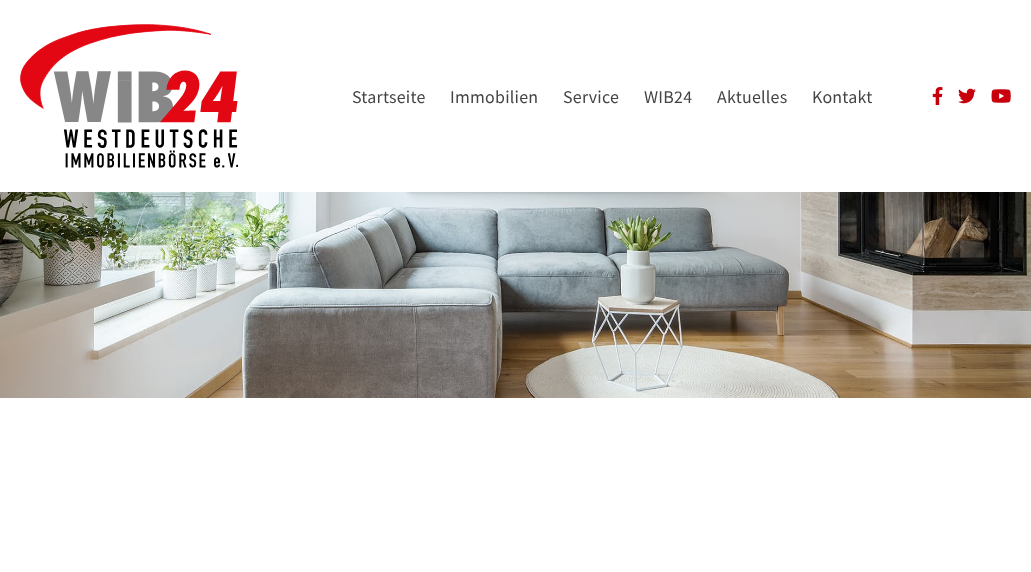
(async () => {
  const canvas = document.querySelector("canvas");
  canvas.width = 1031;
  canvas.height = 572;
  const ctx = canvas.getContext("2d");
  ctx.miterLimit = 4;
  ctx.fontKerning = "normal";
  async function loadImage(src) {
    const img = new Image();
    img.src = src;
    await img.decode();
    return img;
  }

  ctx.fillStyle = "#ffffff";
  ctx.fillRect(0, 0, 1031, 572);
  ctx.drawImage(await loadImage("img/1.png"), 20, 24, 218, 144);
  ctx.drawImage(await loadImage("img/2.png"), 932, 87, 11, 18);
  ctx.drawImage(await loadImage("img/3.png"), 958, 88, 18, 16);
  ctx.drawImage(await loadImage("img/4.png"), 991, 89, 20, 14);
  ctx.drawImage(await loadImage("img/5.png"), 0, 192, 1031, 206);
  ctx.letterSpacing = "0.25px";
  ctx.font = "100 16px Noto Sans JP";
  ctx.fillStyle = "#444444";
  for (const [text, x, y] of [
    ["Startseite", 352, 103],
    ["Immobilien", 450, 103],
    ["Service", 563, 103],
    ["WIB24", 644, 103],
    ["Aktuelles", 717, 103],
    ["Kontakt", 812, 103],
  ]) {
    ctx.fillText(text, x, y);
  }
})();
